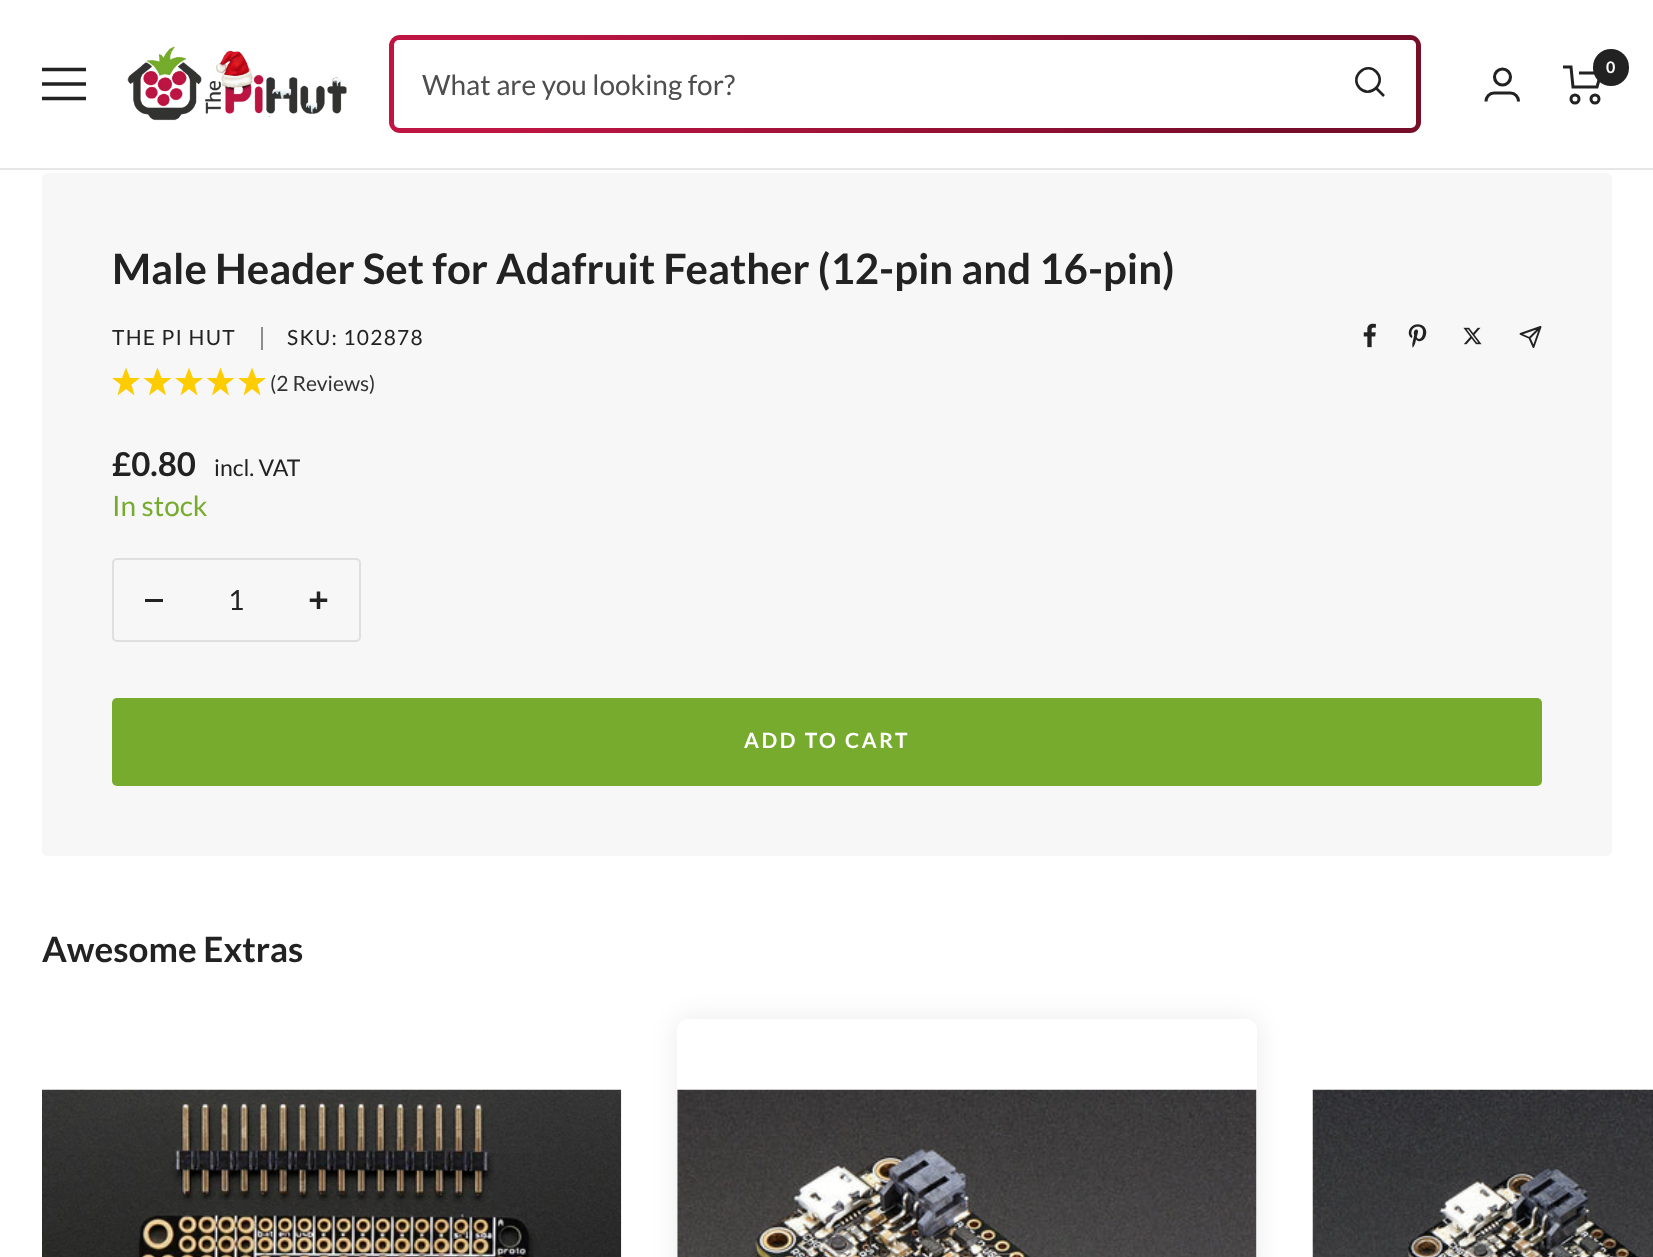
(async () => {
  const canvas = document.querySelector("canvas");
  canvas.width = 1653;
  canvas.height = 1257;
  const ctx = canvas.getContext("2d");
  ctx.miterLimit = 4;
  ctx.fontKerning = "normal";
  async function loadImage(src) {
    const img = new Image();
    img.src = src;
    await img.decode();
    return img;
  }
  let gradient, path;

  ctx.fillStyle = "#ffffff";
  ctx.fillRect(0, 0, 1653, 1257);
  ctx.fillStyle = "#e7e5e5";
  ctx.fillRect(0, 168, 1653, 2);
  path = new Path2D("M42 69.5H86M42 98.5H86ZM42 84H86Z");
  ctx.strokeStyle = "#222222";
  ctx.lineWidth = 3.6;
  ctx.stroke(path);
  ctx.drawImage(await loadImage("img/1.png"), 127, 46, 220, 75);
  gradient = ctx.createLinearGradient(388, 82, 1421, 86);
  gradient.addColorStop(0.12, "#be1543");
  gradient.addColorStop(0.86, "#760d29");
  ctx.fillStyle = gradient;
  ctx.beginPath();
  ctx.roundRect(389, 35, 1032, 98, 11);
  ctx.fill();
  ctx.fillStyle = "#ffffff";
  ctx.beginPath();
  ctx.roundRect(394, 40, 1022, 88, 5);
  ctx.fill();
  path = new Path2D("M1376 88C1387 77 1371 61 1360 72C1349 83 1365 99 1376 88ZM1376 88L1384 96");
  ctx.lineWidth = 2.6;
  ctx.stroke(path);
  ctx.beginPath();
  ctx.arc(1502.5, 77, 8, 0, Math.PI * 2);
  ctx.lineWidth = 3.1;
  ctx.stroke();
  path = new Path2D("M1486 101.5C1486 97 1489.5 93 1494 93H1510.5C1515 93 1518.5 97 1518.5 101.5");
  ctx.stroke(path);
  path = new Path2D("M1563 67H1571L1573 87H1597L1601 73H1579");
  ctx.lineWidth = 3;
  ctx.stroke(path);
  ctx.beginPath();
  ctx.arc(1575, 99, 4, 0, Math.PI * 2);
  ctx.stroke();
  ctx.beginPath();
  ctx.arc(1595, 99, 4, 0, Math.PI * 2);
  ctx.stroke();
  ctx.fillStyle = "#222222";
  ctx.beginPath();
  ctx.roundRect(1593, 49, 36, 37, 18);
  ctx.fill();
  ctx.fillStyle = "#f7f7f7";
  ctx.beginPath();
  ctx.roundRect(42, 173, 1570, 683, 5);
  ctx.fill();
  ctx.fillStyle = "#8d8d8d";
  ctx.fillRect(261, 327, 2, 23);
  ctx.drawImage(await loadImage("img/2.png"), 1363, 323, 13, 25);
  ctx.drawImage(await loadImage("img/3.png"), 1408, 324, 19, 24);
  ctx.drawImage(await loadImage("img/4.png"), 1463, 327, 19, 18);
  path = new Path2D("M1540.5 327L1533.5 347L1529.5 338M1540.5 327L1520.5 334L1529.5 338M1540.5 327L1529.5 338");
  ctx.lineWidth = 1.9;
  ctx.lineCap = "round";
  ctx.lineJoin = "round";
  ctx.stroke(path);
  ctx.fillStyle = "#ffcc00";
  path = new Path2D("M140 378L131.5 384.5L134.5 395.5L126 389L117.5 395.5L120.5 384.5L112 378H122L126 367.5L130 378ZM171.5 378L163 384.5L166 395.5L157.5 389L149 395.5L152 384.5L143.5 378H153.5L157.5 367.5L161.5 378Z");
  ctx.fill(path);
  path = new Path2D("M203 378L194.5 384.5L197.5 395.5L189 389L180.5 395.5L183.5 384.5L175 378H185L189 367.5L193 378ZM234.5 378L226 384.5L229 395.5L220.5 389L212 395.5L215 384.5L206.5 378H216.5L220.5 367.5L224.5 378Z");
  ctx.fill(path);
  path = new Path2D("M266 378L257.5 384.5L260.5 395.5L252 389L243.5 395.5L246.5 384.5L238 378H248L252 367.5L256 378Z");
  ctx.fill(path);
  ctx.beginPath();
  ctx.roundRect(113, 559, 247, 82, 4);
  ctx.strokeStyle = "#e1dede";
  ctx.lineWidth = 2;
  ctx.lineJoin = "miter";
  ctx.stroke();
  ctx.fillStyle = "#222222";
  ctx.fillRect(145, 599, 18, 3);
  ctx.drawImage(await loadImage("img/5.png"), 309, 591, 19, 18);
  ctx.fillStyle = "#77ab2d";
  ctx.beginPath();
  ctx.roundRect(112, 698, 1430, 88, 5);
  ctx.fill();
  ctx.drawImage(await loadImage("img/6.png"), 42, 1089, 580, 168);
  ctx.fillStyle = "rgba(0, 0, 0, 0.07)";
  ctx.filter = "blur(13px)";
  ctx.beginPath();
  ctx.roundRect(676, 1017, 582, 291, 12);
  ctx.fill();
  ctx.filter = "none";
  ctx.fillStyle = "#ffffff";
  ctx.beginPath();
  ctx.roundRect(677, 1019, 580, 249, 11);
  ctx.fill();
  ctx.drawImage(await loadImage("img/7.png"), 677, 1089, 580, 168);
  ctx.drawImage(await loadImage("img/8.png"), 1312, 1089, 341, 168);
  ctx.font = "28px Lato";
  ctx.fillStyle = "#4e4e4e";
  ctx.fillText("What are you looking for?", 422, 95);
  ctx.font = "bold 16px Lato";
  ctx.fillStyle = "#ffffff";
  ctx.fillText("0", 1606, 73);
  ctx.font = "bold 42px Lato";
  ctx.fillStyle = "#222222";
  ctx.fillText("Male Header Set for Adafruit Feather (12-pin and 16-pin)", 112, 284);
  ctx.letterSpacing = "1.25px";
  ctx.font = "21px Lato";
  ctx.fillText("THE PI HUT", 112, 345);
  ctx.fillText("SKU: 102878", 287, 345);
  ctx.letterSpacing = "0px";
  ctx.fillStyle = "#333333";
  ctx.fillText("(2 Reviews)", 270, 391);
  ctx.font = "bold 33px Lato";
  ctx.fillStyle = "#222222";
  ctx.fillText("£0.80", 112, 476);
  ctx.font = "23px Lato";
  ctx.fillText("incl. VAT", 214, 476);
  ctx.font = "28px Lato";
  ctx.fillStyle = "#77ab2d";
  ctx.fillText("In stock", 112, 516);
  ctx.fillStyle = "#222222";
  ctx.fillText("1", 228, 610);
  ctx.letterSpacing = "2.6px";
  ctx.font = "bold 21px Lato";
  ctx.fillStyle = "#ffffff";
  ctx.fillText("ADD TO CART", 744, 748);
  ctx.letterSpacing = "0px";
  ctx.font = "bold 35px Lato";
  ctx.fillStyle = "#222222";
  ctx.fillText("Awesome Extras", 42, 962);
})();
